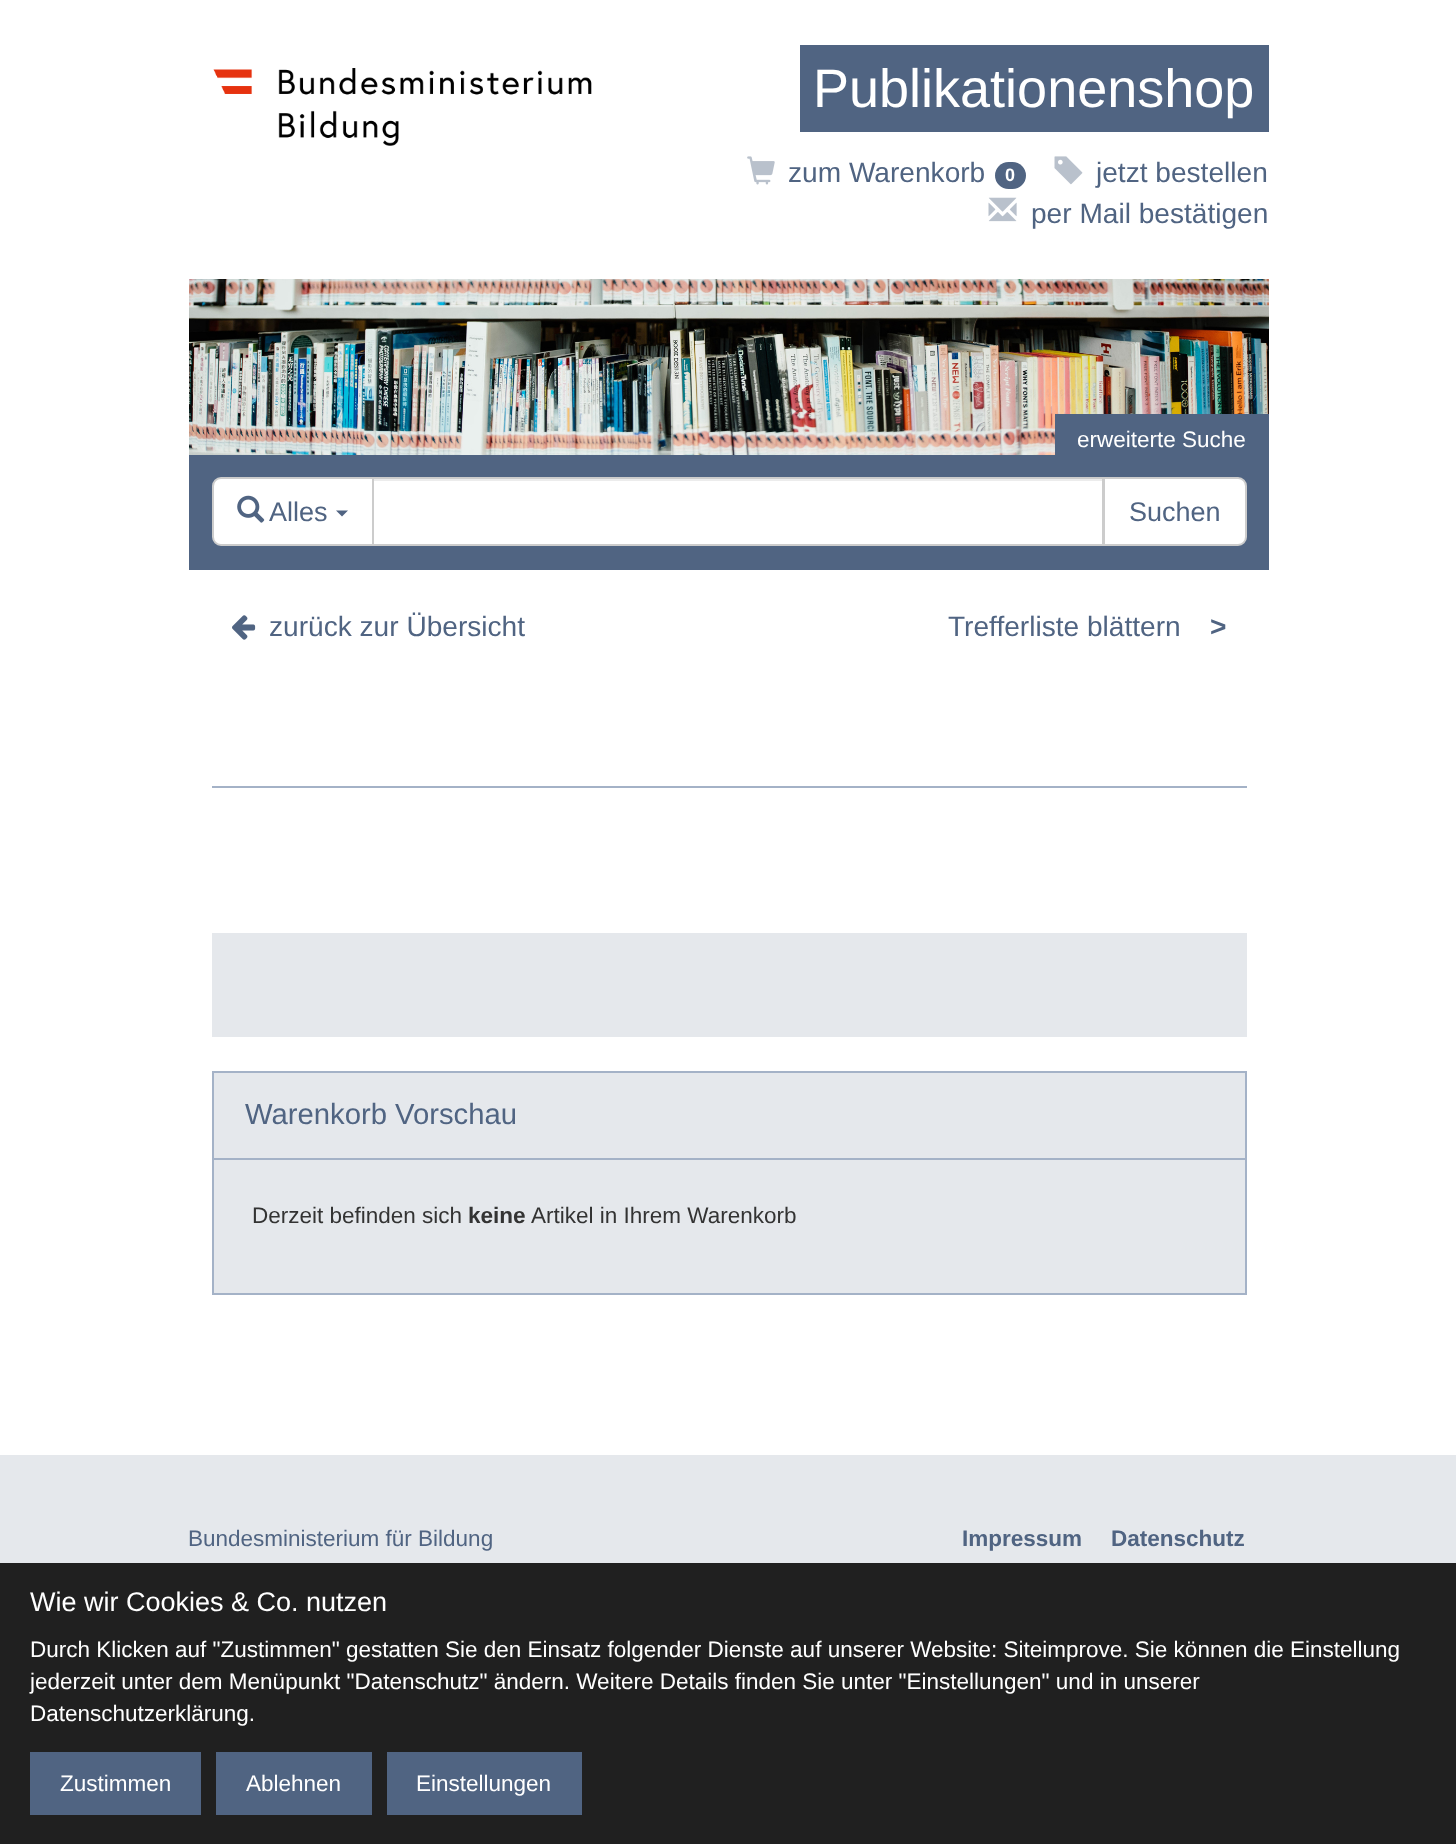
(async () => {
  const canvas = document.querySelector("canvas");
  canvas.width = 1456;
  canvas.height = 1844;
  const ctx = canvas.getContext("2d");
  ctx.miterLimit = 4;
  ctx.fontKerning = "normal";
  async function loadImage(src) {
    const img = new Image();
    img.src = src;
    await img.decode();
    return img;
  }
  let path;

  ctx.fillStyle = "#e5e8ec";
  ctx.fillRect(0, 0, 1456, 1844);
  ctx.fillStyle = "#ffffff";
  ctx.fillRect(0, 0, 1456, 1455);
  ctx.drawImage(await loadImage("img/1.png"), 213, 68, 379, 78);
  ctx.fillStyle = "#506482";
  ctx.fillRect(800, 45, 469, 87);
  ctx.drawImage(await loadImage("img/2.png"), 747, 156, 28, 29);
  ctx.beginPath();
  ctx.roundRect(995, 162, 31, 27, 13.5);
  ctx.fill();
  ctx.drawImage(await loadImage("img/3.png"), 1054, 156, 29, 29);
  ctx.drawImage(await loadImage("img/4.png"), 988, 197, 29, 25);
  ctx.drawImage(await loadImage("img/5.png"), 189, 279, 1080, 176);
  ctx.fillRect(1055, 414, 214, 41);
  ctx.fillRect(189, 455, 1080, 115);
  ctx.fillStyle = "#ffffff";
  ctx.beginPath();
  ctx.roundRect(213, 478, 160, 67, [8, 0, 0, 8]);
  ctx.fill();
  ctx.strokeStyle = "#cccccc";
  ctx.lineWidth = 2;
  ctx.stroke();
  ctx.drawImage(await loadImage("img/6.png"), 237, 495, 28, 28);
  ctx.fillStyle = "#506482";
  path = new Path2D("M336 510.5H348L342 516.5Z");
  ctx.fill(path);
  ctx.fillStyle = "#ffffff";
  ctx.fillRect(374, 481, 728, 63);
  ctx.fillStyle = "#ececec";
  ctx.fillRect(374, 479, 729, 2);
  ctx.strokeRect(373, 478, 730, 67);
  ctx.fillStyle = "#ffffff";
  ctx.beginPath();
  ctx.roundRect(1104, 478, 142, 67, [0, 8, 8, 0]);
  ctx.fill();
  ctx.stroke();
  ctx.drawImage(await loadImage("img/7.png"), 232, 615, 24, 25);
  ctx.fillStyle = "#a4b2c7";
  ctx.fillRect(212, 786, 1035, 2);
  ctx.fillStyle = "#e5e8ec";
  ctx.fillRect(212, 933, 1035, 104);
  ctx.beginPath();
  ctx.rect(213, 1072, 1033, 222);
  ctx.fill();
  ctx.strokeStyle = "#a4b2c7";
  ctx.stroke();
  for (const [x, y, w, h, color] of [
    [213, 1158, 1032, 2, "#a4b2c7"],
    [0, 1563, 1456, 281, "#202020"],
    [30, 1752, 171, 63, "#506482"],
    [216, 1752, 156, 63, "#506482"],
    [387, 1752, 195, 63, "#506482"],
  ]) {
    ctx.fillStyle = color;
    ctx.fillRect(x, y, w, h);
  }
  ctx.font = "54px Liberation Sans";
  ctx.fillStyle = "#ffffff";
  ctx.fillText("Publikationenshop", 813, 107);
  ctx.font = "28.1px Liberation Sans";
  ctx.fillStyle = "#506482";
  ctx.fillText("zum Warenkorb", 788, 182);
  ctx.font = "bold 18px Liberation Sans";
  ctx.fillStyle = "#ffffff";
  ctx.fillText("0", 1005, 181);
  ctx.font = "28.1px Liberation Sans";
  ctx.fillStyle = "#506482";
  ctx.fillText("jetzt bestellen", 1096, 182);
  ctx.fillText("per Mail bestätigen", 1031, 223);
  ctx.font = "22.5px Liberation Sans";
  ctx.fillStyle = "#ffffff";
  ctx.fillText("erweiterte Suche", 1077, 447);
  ctx.font = "27px Liberation Sans";
  ctx.fillStyle = "#506482";
  ctx.fillText("Alles", 269, 521);
  ctx.fillText("Suchen", 1129, 521);
  ctx.font = "28.1px Liberation Sans";
  ctx.fillText("zurück zur Übersicht", 269, 636);
  ctx.fillText("Trefferliste blättern", 948, 636);
  ctx.font = "bold 28.1px Liberation Sans";
  ctx.fillText(">", 1210, 636);
  ctx.font = "29.25px Liberation Sans";
  ctx.fillText("Warenkorb Vorschau", 245, 1124);
  ctx.font = "22.5px Liberation Sans";
  ctx.fillStyle = "#333333";
  ctx.fillText("Derzeit befinden sich", 252, 1223);
  ctx.font = "bold 22.5px Liberation Sans";
  ctx.fillText("keine", 468, 1223);
  ctx.font = "22.5px Liberation Sans";
  ctx.fillText("Artikel in Ihrem Warenkorb", 531, 1223);
  ctx.fillStyle = "#506482";
  ctx.fillText("Bundesministerium für Bildung", 188, 1546);
  ctx.font = "bold 22.5px Liberation Sans";
  ctx.fillText("Impressum", 962, 1546);
  ctx.fillText("Datenschutz", 1111, 1546);
  ctx.font = "27px Liberation Sans";
  ctx.fillStyle = "#ffffff";
  ctx.fillText("Wie wir Cookies & Co. nutzen", 30, 1611);
  ctx.font = "22.5px Liberation Sans";
  for (const [text, x, y] of [
    ["Durch Klicken auf \"Zustimmen\" gestatten Sie den Einsatz folgender Dienste auf unserer Website: Siteimprove. Sie können die Einstellung", 30, 1657],
    ["jederzeit unter dem Menüpunkt \"Datenschutz\" ändern. Weitere Details finden Sie unter \"Einstellungen\" und in unserer", 30, 1689],
    ["Datenschutzerklärung.", 30, 1721],
    ["Zustimmen", 60, 1791],
    ["Ablehnen", 246, 1791],
    ["Einstellungen", 416, 1791],
  ]) {
    ctx.fillText(text, x, y);
  }
})();
